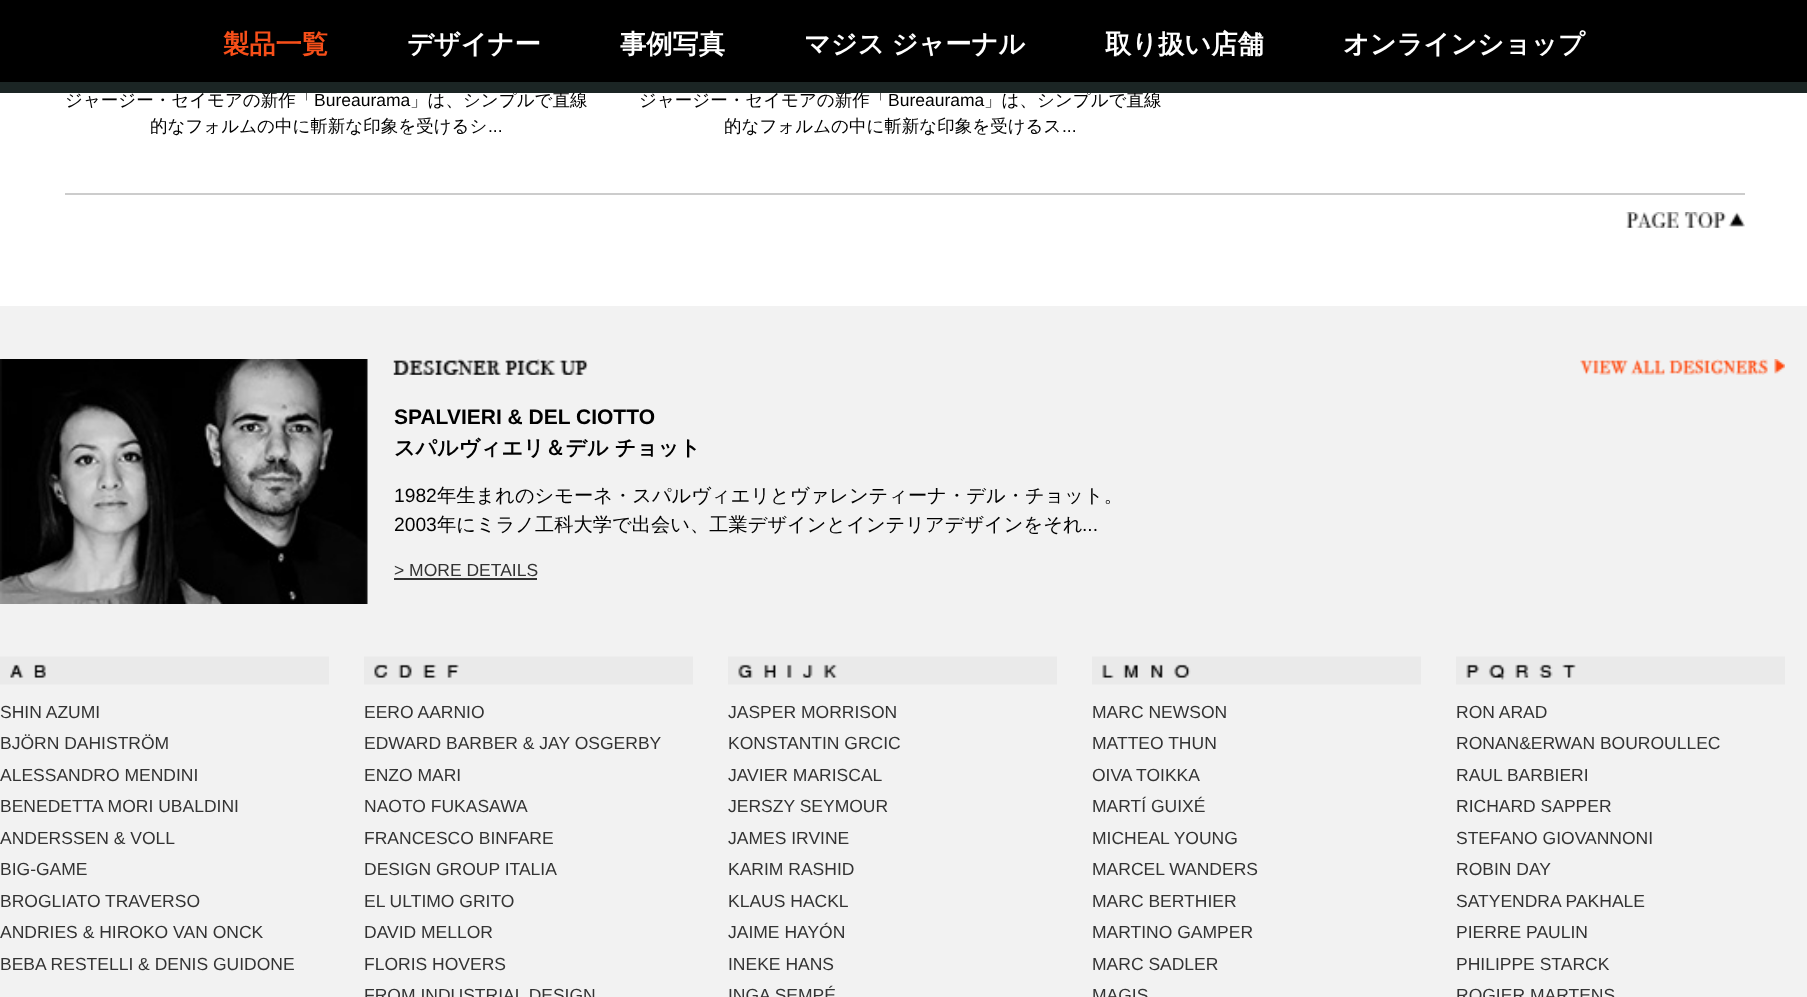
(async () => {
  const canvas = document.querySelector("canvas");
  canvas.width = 1807;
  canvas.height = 997;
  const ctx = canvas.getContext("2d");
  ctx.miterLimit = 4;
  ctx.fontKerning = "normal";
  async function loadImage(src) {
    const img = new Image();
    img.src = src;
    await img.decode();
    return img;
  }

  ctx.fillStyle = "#ffffff";
  ctx.fillRect(0, 0, 1807, 997);
  ctx.fillStyle = "#000000";
  ctx.fillRect(0, 0, 1807, 82);
  ctx.fillStyle = "#cccccc";
  ctx.fillRect(65, 193, 1680, 2);
  ctx.drawImage(await loadImage("img/1.png"), 1625, 212, 120, 16);
  ctx.fillStyle = "#f2f2f2";
  ctx.fillRect(0, 306, 1807, 691);
  ctx.drawImage(await loadImage("img/2.png"), 0, 359, 368, 245);
  ctx.drawImage(await loadImage("img/3.png"), 393, 359, 195, 16);
  ctx.drawImage(await loadImage("img/4.png"), 1580, 359, 205, 16);
  ctx.fillStyle = "#333333";
  ctx.fillRect(394, 578, 143, 2);
  ctx.drawImage(await loadImage("img/5.png"), 0, 656, 329, 29);
  ctx.drawImage(await loadImage("img/6.png"), 364, 656, 329, 29);
  ctx.drawImage(await loadImage("img/7.png"), 728, 656, 329, 29);
  ctx.drawImage(await loadImage("img/8.png"), 1092, 656, 329, 29);
  ctx.drawImage(await loadImage("img/9.png"), 1456, 656, 329, 29);
  ctx.font = "bold 26.25px WenQuanYi Zen Hei";
  ctx.fillStyle = "#f74f19";
  ctx.fillText("製品一覧", 223, 53);
  ctx.fillStyle = "#ffffff";
  ctx.fillText("デザイナー", 407, 53);
  ctx.fillText("事例写真", 620, 53);
  ctx.wordSpacing = "-1px";
  ctx.fillText("マジス ジャーナル", 804, 53);
  ctx.wordSpacing = "0px";
  ctx.fillText("取り扱い店舗", 1105, 53);
  ctx.fillText("オンラインショップ", 1343, 53);
  ctx.font = "500 17.5px WenQuanYi Zen Hei";
  ctx.fillStyle = "#000000";
  ctx.fillText("ジャージー・セイモアの新作「", 65, 106);
  ctx.font = "17.5px Liberation Sans";
  ctx.fillText("Bureaurama", 314, 106);
  ctx.font = "500 17.5px WenQuanYi Zen Hei";
  ctx.fillText("」は、シンプルで直線", 410, 106);
  ctx.fillText("的なフォルムの中に斬新な印象を受けるシ", 150, 132);
  ctx.font = "17.5px Liberation Sans";
  ctx.fillText("...", 488, 132);
  ctx.font = "500 17.5px WenQuanYi Zen Hei";
  ctx.fillText("ジャージー・セイモアの新作「", 639, 106);
  ctx.font = "17.5px Liberation Sans";
  ctx.fillText("Bureaurama", 888, 106);
  ctx.font = "500 17.5px WenQuanYi Zen Hei";
  ctx.fillText("」は、シンプルで直線", 984, 106);
  ctx.fillStyle = "#1b2524";
  ctx.fillRect(0, 82, 1807, 11);
  ctx.fillStyle = "#000000";
  ctx.fillText("的なフォルムの中に斬新な印象を受けるス", 724, 132);
  ctx.font = "17.5px Liberation Sans";
  ctx.fillText("...", 1062, 132);
  ctx.font = "bold 21px Liberation Sans";
  ctx.fillText("SPALVIERI & DEL CIOTTO", 394, 424);
  ctx.font = "bold 21px WenQuanYi Zen Hei";
  ctx.fillText("スパルヴィエリ＆デル チョット", 394, 455);
  ctx.font = "19.25px Liberation Sans";
  ctx.fillText("1982", 394, 502);
  ctx.font = "500 19.25px WenQuanYi Zen Hei";
  ctx.fillText("年生まれのシモーネ・スパルヴィエリとヴァレンティーナ・デル・チョット。", 437, 502);
  ctx.font = "19.25px Liberation Sans";
  ctx.fillText("2003", 394, 531);
  ctx.font = "500 19.25px WenQuanYi Zen Hei";
  ctx.fillText("年にミラノ工科大学で出会い、工業デザインとインテリアデザインをそれ", 437, 531);
  ctx.font = "19.25px Liberation Sans";
  ctx.fillText("...", 1082, 531);
  ctx.font = "17.5px Liberation Sans";
  ctx.fillStyle = "#333333";
  for (const [text, x, y] of [
    ["> MORE DETAILS", 394, 576],
    ["SHIN AZUMI", 0, 718],
    ["BJÖRN DAHISTRÖM", 0, 749],
    ["ALESSANDRO MENDINI", 0, 781],
    ["BENEDETTA MORI UBALDINI", 0, 812],
    ["ANDERSSEN & VOLL", 0, 844],
    ["BIG-GAME", 0, 875],
    ["BROGLIATO TRAVERSO", 0, 907],
    ["ANDRIES & HIROKO VAN ONCK", 0, 938],
    ["BEBA RESTELLI & DENIS GUIDONE", 0, 970],
    ["EERO AARNIO", 364, 718],
    ["EDWARD BARBER & JAY OSGERBY", 364, 749],
    ["ENZO MARI", 364, 781],
    ["NAOTO FUKASAWA", 364, 812],
    ["FRANCESCO BINFARE", 364, 844],
    ["DESIGN GROUP ITALIA", 364, 875],
    ["EL ULTIMO GRITO", 364, 907],
    ["DAVID MELLOR", 364, 938],
    ["FLORIS HOVERS", 364, 970],
    ["FROM INDUSTRIAL DESIGN", 364, 1001],
    ["JASPER MORRISON", 728, 718],
    ["KONSTANTIN GRCIC", 728, 749],
    ["JAVIER MARISCAL", 728, 781],
    ["JERSZY SEYMOUR", 728, 812],
    ["JAMES IRVINE", 728, 844],
    ["KARIM RASHID", 728, 875],
    ["KLAUS HACKL", 728, 907],
    ["JAIME HAYÓN", 728, 938],
    ["INEKE HANS", 728, 970],
    ["INGA SEMPÉ", 728, 1001],
    ["MARC NEWSON", 1092, 718],
    ["MATTEO THUN", 1092, 749],
    ["OIVA TOIKKA", 1092, 781],
    ["MARTÍ GUIXÉ", 1092, 812],
    ["MICHEAL YOUNG", 1092, 844],
    ["MARCEL WANDERS", 1092, 875],
    ["MARC BERTHIER", 1092, 907],
    ["MARTINO GAMPER", 1092, 938],
    ["MARC SADLER", 1092, 970],
    ["MAGIS", 1092, 1001],
    ["RON ARAD", 1456, 718],
    ["RONAN&ERWAN BOUROULLEC", 1456, 749],
    ["RAUL BARBIERI", 1456, 781],
    ["RICHARD SAPPER", 1456, 812],
    ["STEFANO GIOVANNONI", 1456, 844],
    ["ROBIN DAY", 1456, 875],
    ["SATYENDRA PAKHALE", 1456, 907],
    ["PIERRE PAULIN", 1456, 938],
    ["PHILIPPE STARCK", 1456, 970],
    ["ROGIER MARTENS", 1456, 1001],
  ]) {
    ctx.fillText(text, x, y);
  }
})();
